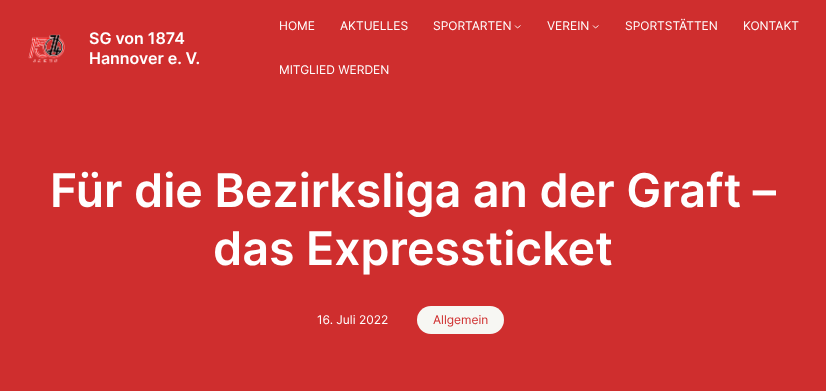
(async () => {
  const canvas = document.querySelector("canvas");
  canvas.width = 826;
  canvas.height = 391;
  const ctx = canvas.getContext("2d");
  ctx.miterLimit = 4;
  ctx.fontKerning = "normal";
  async function loadImage(src) {
    const img = new Image();
    img.src = src;
    await img.decode();
    return img;
  }
  let path;

  ctx.fillStyle = "#cf2e2e";
  ctx.fillRect(0, 0, 826, 391);
  ctx.drawImage(await loadImage("img/1.png"), 28, 34, 37, 29);
  path = new Path2D("M515 25.5L517.5 28L520.5 25.5");
  ctx.strokeStyle = "#ffffff";
  ctx.lineWidth = 0.9;
  ctx.stroke(path);
  path = new Path2D("M593 25.5L595.5 28L598.5 25.5");
  ctx.stroke(path);
  ctx.fillStyle = "#f7f7f3";
  ctx.beginPath();
  ctx.roundRect(417, 306, 87, 28, 14);
  ctx.fill();
  ctx.font = "600 16px Inter";
  ctx.fillStyle = "#ffffff";
  ctx.fillText("SG von 1874", 89, 44);
  ctx.fillText("Hannover e. V.", 89, 64);
  ctx.font = "12px Inter";
  for (const [text, x, y] of [
    ["HOME", 279, 30],
    ["AKTUELLES", 340, 30],
    ["SPORTARTEN", 433, 30],
    ["VEREIN", 547, 30],
    ["SPORTSTÄTTEN", 625, 30],
    ["KONTAKT", 743, 30],
    ["MITGLIED WERDEN", 279, 74],
  ]) {
    ctx.fillText(text, x, y);
  }
  ctx.font = "600 46.5px Inter";
  ctx.fillText("Für die Bezirksliga an der Graft –", 50, 207);
  ctx.fillText("das Expressticket", 213, 265);
  ctx.font = "12px Inter";
  ctx.fillText("16. Juli 2022", 317, 324);
  ctx.fillStyle = "#cf2e2e";
  ctx.fillText("Allgemein", 433, 324);
})();
